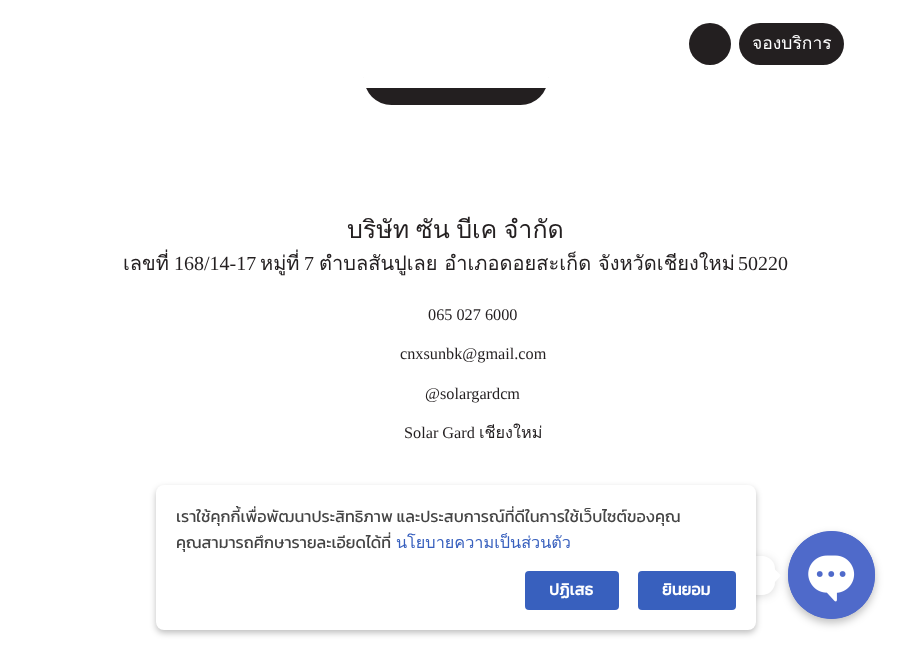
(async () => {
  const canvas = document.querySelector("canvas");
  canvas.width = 911;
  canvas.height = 650;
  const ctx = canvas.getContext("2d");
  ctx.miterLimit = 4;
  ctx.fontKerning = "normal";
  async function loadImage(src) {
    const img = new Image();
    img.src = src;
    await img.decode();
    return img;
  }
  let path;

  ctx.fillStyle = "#ffffff";
  ctx.fillRect(0, 0, 911, 650);
  ctx.fillStyle = "#231f20";
  ctx.beginPath();
  ctx.roundRect(364, 50, 184, 55, 27.5);
  ctx.fill();
  ctx.fillStyle = "#ffffff";
  ctx.fillRect(364, 50, 184, 38);
  ctx.fillStyle = "#231f20";
  ctx.beginPath();
  ctx.arc(710, 44, 21, 0, Math.PI * 2);
  ctx.fill();
  ctx.beginPath();
  ctx.roundRect(739, 23, 105, 42, 21);
  ctx.fill();
  ctx.fillStyle = "rgba(0, 0, 0, 0.15)";
  ctx.filter = "blur(5px)";
  ctx.beginPath();
  ctx.roundRect(658, 558, 117, 38, 13);
  ctx.fill();
  ctx.filter = "none";
  ctx.fillStyle = "#ffffff";
  ctx.beginPath();
  ctx.roundRect(658, 556, 117, 39, 13);
  ctx.fill();
  ctx.fillStyle = "rgba(0, 0, 0, 0.25)";
  ctx.filter = "blur(3px)";
  ctx.beginPath();
  ctx.roundRect(156, 488, 600, 145, 8);
  ctx.fill();
  ctx.filter = "none";
  ctx.fillStyle = "#ffffff";
  ctx.beginPath();
  ctx.roundRect(156, 485, 600, 145, 8);
  ctx.fill();
  ctx.fillStyle = "#3860be";
  ctx.beginPath();
  ctx.roundRect(525, 571, 94, 39, 4);
  ctx.fill();
  ctx.beginPath();
  ctx.roundRect(638, 571, 98, 39, 4);
  ctx.fill();
  ctx.fillStyle = "#ffffff";
  path = new Path2D("M775 582V569.5L781 575.5Z");
  ctx.fill(path);
  ctx.fillStyle = "rgba(0, 0, 0, 0.25)";
  ctx.filter = "blur(4px)";
  ctx.beginPath();
  ctx.roundRect(788, 535, 87, 88, 43.5);
  ctx.fill();
  ctx.filter = "none";
  ctx.fillStyle = "#4f6aca";
  ctx.beginPath();
  ctx.roundRect(788, 531, 87, 88, 43.5);
  ctx.fill();
  ctx.drawImage(await loadImage("img/1.png"), 788, 531, 87, 88);
  ctx.font = "17.5px Loma";
  ctx.fillStyle = "#ffffff";
  ctx.fillText("จองบริการ", 752, 49);
  ctx.wordSpacing = "-2px";
  ctx.font = "25px Loma";
  ctx.fillStyle = "#231f20";
  ctx.fillText("บริษัท ซัน บีเค จำกัด", 347, 238);
  ctx.wordSpacing = "0px";
  ctx.font = "20px Loma";
  ctx.fillText("เลขที่", 123, 270);
  ctx.font = "20px Liberation Serif";
  ctx.fillText("168/14-17", 174, 270);
  ctx.font = "20px Loma";
  ctx.fillText("หมู่ที่", 260, 270);
  ctx.font = "20px Liberation Serif";
  ctx.fillText("7", 304, 270);
  ctx.font = "20px Loma";
  ctx.fillText("ตำบลสันปูเลย อำเภอดอยสะเก็ด จังหวัดเชียงใหม่", 319, 270);
  ctx.font = "20px Liberation Serif";
  ctx.fillText("50220", 738, 270);
  ctx.font = "16.25px Liberation Serif";
  for (const [text, x, y] of [
    ["065 027 6000", 428, 320],
    ["cnxsunbk@gmail.com", 400, 359],
    ["@solargardcm", 425, 399],
    ["Solar Gard", 404, 438],
  ]) {
    ctx.fillText(text, x, y);
  }
  ctx.font = "16.25px Loma";
  ctx.fillText("เชียงใหม่", 479, 438);
  ctx.font = "16.25px Kanit";
  ctx.fillStyle = "#444444";
  ctx.fillText("เราใช้คุกกี้เพื่อพัฒนาประสิทธิภาพ และประสบการณ์ที่ดีในการใช้เว็บไซต์ของคุณ", 176, 522);
  ctx.fillText("คุณสามารถศึกษารายละเอียดได้ที่", 176, 548);
  ctx.font = "16.25px Loma";
  ctx.fillStyle = "#3860be";
  ctx.fillText("นโยบายความเป็นส่วนตัว", 396, 548);
  ctx.font = "bold 16.25px Kanit";
  ctx.fillStyle = "#ffffff";
  ctx.fillText("ปฏิเสธ", 549, 595);
  ctx.fillText("ยินยอม", 662, 595);
})();
